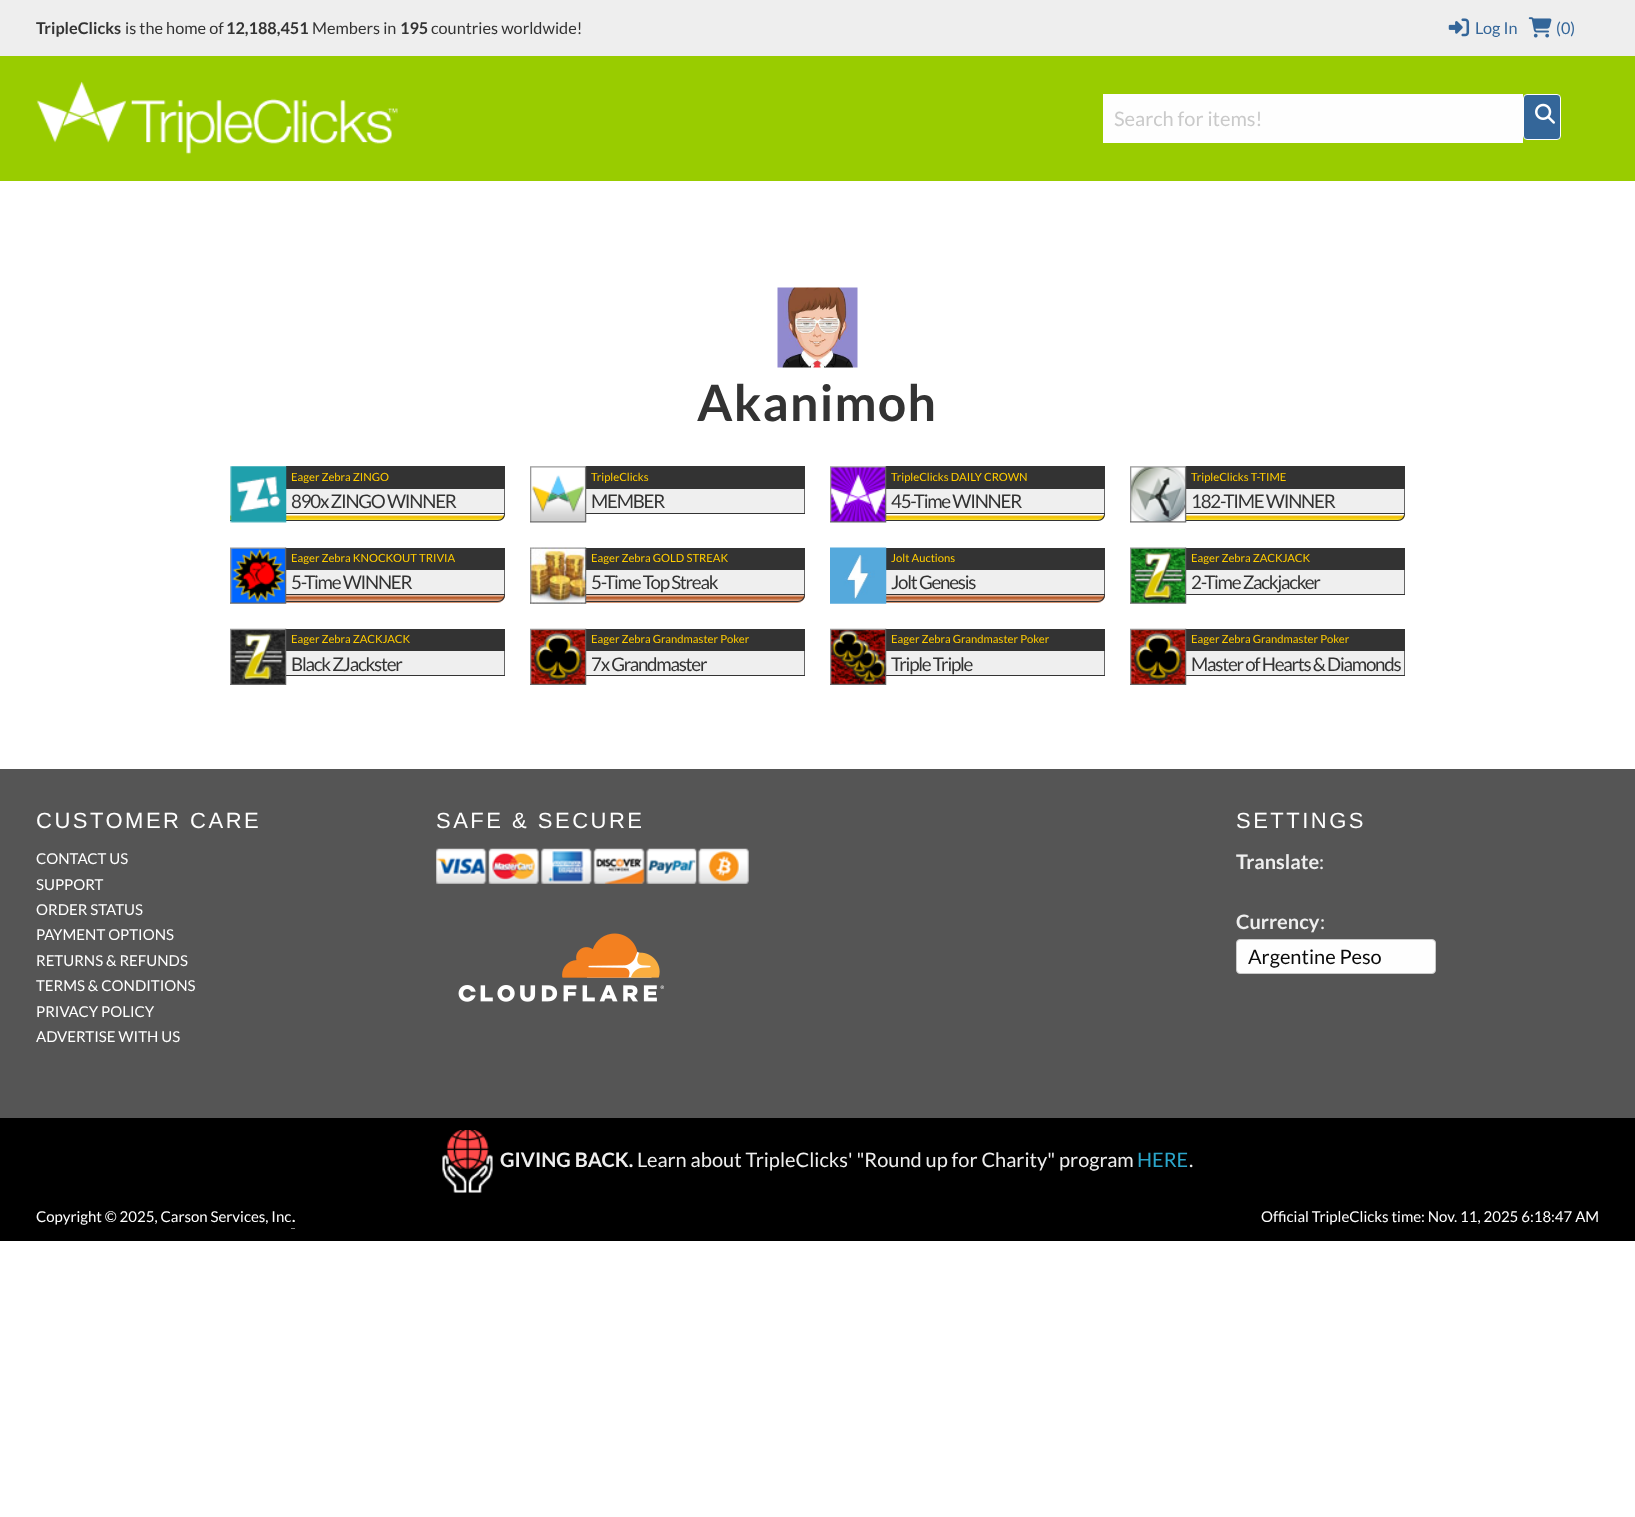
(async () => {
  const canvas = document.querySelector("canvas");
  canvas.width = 1635;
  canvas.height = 1517;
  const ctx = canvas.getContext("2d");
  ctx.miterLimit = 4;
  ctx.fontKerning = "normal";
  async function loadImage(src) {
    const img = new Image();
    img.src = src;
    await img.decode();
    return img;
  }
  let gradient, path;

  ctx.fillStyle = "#ffffff";
  ctx.fillRect(0, 0, 1635, 1517);
  ctx.fillStyle = "#99cc00";
  ctx.fillRect(0, 56, 1635, 125);
  ctx.fillStyle = "#eeeeee";
  ctx.fillRect(0, 0, 1635, 56);
  ctx.drawImage(await loadImage("img/1.png"), 1448, 18, 22, 19);
  ctx.drawImage(await loadImage("img/2.png"), 1528, 17, 24, 21);
  ctx.drawImage(await loadImage("img/3.png"), 36, 81, 362, 74);
  ctx.fillStyle = "#fefefe";
  ctx.fillRect(1103, 94, 420, 49);
  ctx.fillStyle = "#346699";
  ctx.beginPath();
  ctx.roundRect(1523.5, 94.5, 37, 45, 3.5);
  ctx.fill();
  ctx.strokeStyle = "#ffffff";
  ctx.stroke();
  ctx.drawImage(await loadImage("img/4.png"), 1535, 103, 20, 21);
  ctx.drawImage(await loadImage("img/5.png"), 777, 287, 81, 81);
  for (const [x, y, w, h, color] of [
    [286, 466, 219, 23, "#333333"],
    [286, 489, 218, 24, "#efefef"],
    [504, 489, 1, 25, "#666666"],
    [286, 513, 219, 1, "#333333"],
  ]) {
    ctx.fillStyle = color;
    ctx.fillRect(x, y, w, h);
  }
  ctx.save();
  ctx.beginPath();
  ctx.roundRect(230, 514, 275, 7, [0, 0, 7, 0]);
  ctx.clip();
  gradient = ctx.createLinearGradient(367, 514, 367, 520);
  gradient.addColorStop(0.1, "#ffffff");
  gradient.addColorStop(0.45, "#f2bd00");
  gradient.addColorStop(1, "#f9e52c");
  ctx.fillStyle = gradient;
  ctx.fillRect(230, 514, 275, 6);
  ctx.restore();
  path = new Path2D("M230 514H505C505 518 502 521 498 521H230ZM230 514H504C504 517 501 520 498 520H230Z");
  ctx.fill(path, "evenodd");
  ctx.drawImage(await loadImage("img/6.png"), 230, 466, 57, 57);
  for (const [x, y, w, h, color] of [
    [586, 466, 219, 23, "#333333"],
    [586, 489, 218, 24, "#efefef"],
    [804, 489, 1, 25, "#666666"],
    [586, 513, 219, 1, "#333333"],
  ]) {
    ctx.fillStyle = color;
    ctx.fillRect(x, y, w, h);
  }
  ctx.drawImage(await loadImage("img/7.png"), 530, 466, 57, 57);
  for (const [x, y, w, h, color] of [
    [886, 466, 219, 23, "#333333"],
    [886, 489, 218, 24, "#efefef"],
    [1104, 489, 1, 25, "#666666"],
    [886, 513, 219, 1, "#333333"],
  ]) {
    ctx.fillStyle = color;
    ctx.fillRect(x, y, w, h);
  }
  ctx.save();
  ctx.beginPath();
  ctx.roundRect(830, 514, 275, 7, [0, 0, 7, 0]);
  ctx.clip();
  gradient = ctx.createLinearGradient(967, 514, 967, 520);
  gradient.addColorStop(0.1, "#ffffff");
  gradient.addColorStop(0.45, "#f2bd00");
  gradient.addColorStop(1, "#f9e52c");
  ctx.fillStyle = gradient;
  ctx.fillRect(886, 514, 219, 6);
  ctx.restore();
  path = new Path2D("M830 514H1105C1105 518 1102 521 1098 521H830ZM830 514H1104C1104 517 1101 520 1098 520H830Z");
  ctx.fill(path, "evenodd");
  ctx.drawImage(await loadImage("img/8.png"), 830, 466, 57, 57);
  for (const [x, y, w, h, color] of [
    [1186, 466, 219, 23, "#333333"],
    [1186, 489, 218, 24, "#efefef"],
    [1404, 489, 1, 25, "#666666"],
    [1186, 513, 219, 1, "#333333"],
  ]) {
    ctx.fillStyle = color;
    ctx.fillRect(x, y, w, h);
  }
  ctx.save();
  ctx.beginPath();
  ctx.roundRect(1130, 514, 275, 7, [0, 0, 7, 0]);
  ctx.clip();
  gradient = ctx.createLinearGradient(1267, 514, 1267, 520);
  gradient.addColorStop(0.1, "#ffffff");
  gradient.addColorStop(0.45, "#f2bd00");
  gradient.addColorStop(1, "#f9e52c");
  ctx.fillStyle = gradient;
  ctx.fillRect(1186, 514, 219, 6);
  ctx.restore();
  path = new Path2D("M1130 514H1405C1405 518 1402 521 1398 521H1130ZM1130 514H1404C1404 517 1401 520 1398 520H1130Z");
  ctx.fill(path, "evenodd");
  ctx.drawImage(await loadImage("img/9.png"), 1130, 466, 57, 57);
  for (const [x, y, w, h, color] of [
    [286, 548, 219, 22, "#333333"],
    [286, 570, 218, 24, "#efefef"],
    [504, 570, 1, 25, "#666666"],
    [286, 594, 219, 1, "#333333"],
  ]) {
    ctx.fillStyle = color;
    ctx.fillRect(x, y, w, h);
  }
  ctx.save();
  ctx.beginPath();
  ctx.roundRect(230, 595, 275, 8, [0, 0, 8, 0]);
  ctx.clip();
  gradient = ctx.createLinearGradient(367, 595, 367, 601);
  gradient.addColorStop(0.1, "#e5b69c");
  gradient.addColorStop(0.45, "#b2511c");
  gradient.addColorStop(1, "#e5b69c");
  ctx.fillStyle = gradient;
  ctx.fillRect(286, 595, 219, 6);
  gradient = ctx.createLinearGradient(367, 601, 367, 608);
  gradient.addColorStop(0.1, "#e5b69c");
  gradient.addColorStop(0.45, "#b2511c");
  gradient.addColorStop(1, "#e5b69c");
  ctx.fillStyle = gradient;
  ctx.fillRect(286, 601, 219, 2);
  ctx.restore();
  path = new Path2D("M230 595H505C505 599 502 602 498 602H230ZM230 595H504C504 598 501 601 498 601H230Z");
  ctx.fill(path, "evenodd");
  ctx.drawImage(await loadImage("img/10.png"), 230, 547, 57, 57);
  for (const [x, y, w, h, color] of [
    [586, 548, 219, 22, "#333333"],
    [586, 570, 218, 24, "#efefef"],
    [804, 570, 1, 25, "#666666"],
    [586, 594, 219, 1, "#333333"],
  ]) {
    ctx.fillStyle = color;
    ctx.fillRect(x, y, w, h);
  }
  ctx.save();
  ctx.beginPath();
  ctx.roundRect(530, 595, 275, 8, [0, 0, 8, 0]);
  ctx.clip();
  gradient = ctx.createLinearGradient(667, 595, 667, 601);
  gradient.addColorStop(0.1, "#e5b69c");
  gradient.addColorStop(0.45, "#b2511c");
  gradient.addColorStop(1, "#e5b69c");
  ctx.fillStyle = gradient;
  ctx.fillRect(586, 595, 219, 6);
  gradient = ctx.createLinearGradient(667, 601, 667, 608);
  gradient.addColorStop(0.1, "#e5b69c");
  gradient.addColorStop(0.45, "#b2511c");
  gradient.addColorStop(1, "#e5b69c");
  ctx.fillStyle = gradient;
  ctx.fillRect(586, 601, 219, 2);
  ctx.restore();
  path = new Path2D("M530 595H805C805 599 802 602 798 602H530ZM530 595H804C804 598 801 601 798 601H530Z");
  ctx.fill(path, "evenodd");
  ctx.drawImage(await loadImage("img/11.png"), 530, 547, 57, 57);
  for (const [x, y, w, h, color] of [
    [886, 548, 219, 22, "#333333"],
    [886, 570, 218, 24, "#efefef"],
    [1104, 570, 1, 25, "#666666"],
    [886, 594, 219, 1, "#333333"],
  ]) {
    ctx.fillStyle = color;
    ctx.fillRect(x, y, w, h);
  }
  ctx.save();
  ctx.beginPath();
  ctx.roundRect(830, 595, 275, 8, [0, 0, 8, 0]);
  ctx.clip();
  gradient = ctx.createLinearGradient(967, 595, 967, 601);
  gradient.addColorStop(0.1, "#e5b69c");
  gradient.addColorStop(0.45, "#b2511c");
  gradient.addColorStop(1, "#e5b69c");
  ctx.fillStyle = gradient;
  ctx.fillRect(886, 595, 219, 6);
  gradient = ctx.createLinearGradient(967, 601, 967, 608);
  gradient.addColorStop(0.1, "#e5b69c");
  gradient.addColorStop(0.45, "#b2511c");
  gradient.addColorStop(1, "#e5b69c");
  ctx.fillStyle = gradient;
  ctx.fillRect(886, 601, 219, 2);
  ctx.restore();
  path = new Path2D("M830 595H1105C1105 599 1102 602 1098 602H830ZM830 595H1104C1104 598 1101 601 1098 601H830Z");
  ctx.fill(path, "evenodd");
  ctx.drawImage(await loadImage("img/12.png"), 830, 547, 57, 57);
  for (const [x, y, w, h, color] of [
    [1186, 548, 219, 22, "#333333"],
    [1186, 570, 218, 24, "#efefef"],
    [1404, 570, 1, 25, "#666666"],
    [1186, 594, 219, 1, "#333333"],
  ]) {
    ctx.fillStyle = color;
    ctx.fillRect(x, y, w, h);
  }
  ctx.drawImage(await loadImage("img/13.png"), 1130, 547, 57, 57);
  for (const [x, y, w, h, color] of [
    [286, 629, 219, 22, "#333333"],
    [286, 651, 218, 24, "#efefef"],
    [504, 651, 1, 25, "#666666"],
    [286, 675, 219, 1, "#333333"],
  ]) {
    ctx.fillStyle = color;
    ctx.fillRect(x, y, w, h);
  }
  ctx.drawImage(await loadImage("img/14.png"), 230, 628, 57, 57);
  for (const [x, y, w, h, color] of [
    [586, 629, 219, 22, "#333333"],
    [586, 651, 218, 24, "#efefef"],
    [804, 651, 1, 25, "#666666"],
    [586, 675, 219, 1, "#333333"],
  ]) {
    ctx.fillStyle = color;
    ctx.fillRect(x, y, w, h);
  }
  ctx.drawImage(await loadImage("img/15.png"), 530, 628, 57, 57);
  for (const [x, y, w, h, color] of [
    [886, 629, 219, 22, "#333333"],
    [886, 651, 218, 24, "#efefef"],
    [1104, 651, 1, 25, "#666666"],
    [886, 675, 219, 1, "#333333"],
  ]) {
    ctx.fillStyle = color;
    ctx.fillRect(x, y, w, h);
  }
  ctx.drawImage(await loadImage("img/16.png"), 830, 628, 57, 57);
  for (const [x, y, w, h, color] of [
    [1186, 629, 219, 22, "#333333"],
    [1186, 651, 218, 24, "#efefef"],
    [1404, 651, 1, 25, "#666666"],
    [1186, 675, 219, 1, "#333333"],
  ]) {
    ctx.fillStyle = color;
    ctx.fillRect(x, y, w, h);
  }
  ctx.drawImage(await loadImage("img/17.png"), 1130, 628, 57, 57);
  ctx.fillStyle = "#555555";
  ctx.fillRect(0, 769, 1635, 349);
  ctx.drawImage(await loadImage("img/18.png"), 436, 848, 313, 36);
  ctx.drawImage(await loadImage("img/19.png"), 458, 933, 206, 69);
  ctx.fillStyle = "#fefefe";
  ctx.beginPath();
  ctx.roundRect(1236.5, 939.5, 199, 34, 3.5);
  ctx.fill();
  ctx.strokeStyle = "#cacaca";
  ctx.stroke();
  ctx.fillStyle = "#000000";
  ctx.fillRect(0, 1118, 1635, 123);
  ctx.drawImage(await loadImage("img/20.png"), 442, 1130, 51, 63);
  ctx.fillStyle = "#8a8a8a";
  ctx.fillRect(291, 1228, 4, 1);
  ctx.font = "bold 16.25px Lato";
  ctx.fillStyle = "#333333";
  ctx.fillText("TripleClicks", 36, 34);
  ctx.font = "16.25px Lato";
  ctx.fillText("is the home of", 125, 34);
  ctx.font = "bold 16.25px Lato";
  ctx.fillText("12,188,451", 226, 34);
  ctx.font = "16.25px Lato";
  ctx.fillText("Members in", 312, 34);
  ctx.font = "bold 16.25px Lato";
  ctx.fillText("195", 400, 34);
  ctx.font = "16.25px Lato";
  ctx.fillText("countries worldwide!", 431, 34);
  ctx.fillStyle = "#346699";
  ctx.fillText("Log In", 1475, 34);
  ctx.fillText("(0)", 1556, 34);
  ctx.font = "20px Lato";
  ctx.fillStyle = "#cacaca";
  ctx.fillText("Search for items!", 1114, 126);
  ctx.letterSpacing = "1.25px";
  ctx.font = "bold 50px Lato";
  ctx.fillStyle = "#333333";
  ctx.fillText("Akanimoh", 697, 421);
  ctx.letterSpacing = "0px";
  ctx.font = "11.25px Lato";
  ctx.fillStyle = "#ffcc00";
  ctx.fillText("Eager Zebra ZINGO", 291, 481);
  ctx.letterSpacing = "-1.25px";
  ctx.font = "18.75px Lato";
  ctx.fillStyle = "#333333";
  ctx.fillText("890x ZINGO WINNER", 291, 508);
  ctx.letterSpacing = "0px";
  ctx.font = "11.25px Lato";
  ctx.fillStyle = "#ffcc00";
  ctx.fillText("TripleClicks", 591, 481);
  ctx.letterSpacing = "-1.25px";
  ctx.font = "18.75px Lato";
  ctx.fillStyle = "#333333";
  ctx.fillText("MEMBER", 591, 508);
  ctx.letterSpacing = "0px";
  ctx.font = "11.25px Lato";
  ctx.fillStyle = "#ffcc00";
  ctx.fillText("TripleClicks DAILY CROWN", 891, 481);
  ctx.letterSpacing = "-1.25px";
  ctx.font = "18.75px Lato";
  ctx.fillStyle = "#333333";
  ctx.fillText("45-Time WINNER", 891, 508);
  ctx.letterSpacing = "0px";
  ctx.font = "11.25px Lato";
  ctx.fillStyle = "#ffcc00";
  ctx.fillText("TripleClicks T-TIME", 1191, 481);
  ctx.letterSpacing = "-1.25px";
  ctx.font = "18.75px Lato";
  ctx.fillStyle = "#333333";
  ctx.fillText("182-TIME WINNER", 1191, 508);
  ctx.letterSpacing = "0px";
  ctx.font = "11.25px Lato";
  ctx.fillStyle = "#ffcc00";
  ctx.fillText("Eager Zebra KNOCKOUT TRIVIA", 291, 562);
  ctx.letterSpacing = "-1.25px";
  ctx.font = "18.75px Lato";
  ctx.fillStyle = "#333333";
  ctx.fillText("5-Time WINNER", 291, 589);
  ctx.letterSpacing = "0px";
  ctx.font = "11.25px Lato";
  ctx.fillStyle = "#ffcc00";
  ctx.fillText("Eager Zebra GOLD STREAK", 591, 562);
  ctx.letterSpacing = "-1.25px";
  ctx.font = "18.75px Lato";
  ctx.fillStyle = "#333333";
  ctx.fillText("5-Time Top Streak", 591, 589);
  ctx.letterSpacing = "0px";
  ctx.font = "11.25px Lato";
  ctx.fillStyle = "#ffcc00";
  ctx.fillText("Jolt Auctions", 891, 562);
  ctx.letterSpacing = "-1.25px";
  ctx.font = "18.75px Lato";
  ctx.fillStyle = "#333333";
  ctx.fillText("Jolt Genesis", 891, 589);
  ctx.letterSpacing = "0px";
  ctx.font = "11.25px Lato";
  ctx.fillStyle = "#ffcc00";
  ctx.fillText("Eager Zebra ZACKJACK", 1191, 562);
  ctx.letterSpacing = "-1.25px";
  ctx.font = "18.75px Lato";
  ctx.fillStyle = "#333333";
  ctx.fillText("2-Time Zackjacker", 1191, 589);
  ctx.letterSpacing = "0px";
  ctx.font = "11.25px Lato";
  ctx.fillStyle = "#ffcc00";
  ctx.fillText("Eager Zebra ZACKJACK", 291, 643);
  ctx.letterSpacing = "-1.25px";
  ctx.font = "18.75px Lato";
  ctx.fillStyle = "#333333";
  ctx.fillText("Black ZJackster", 291, 671);
  ctx.letterSpacing = "0px";
  ctx.font = "11.25px Lato";
  ctx.fillStyle = "#ffcc00";
  ctx.fillText("Eager Zebra Grandmaster Poker", 591, 643);
  ctx.letterSpacing = "-1.25px";
  ctx.font = "18.75px Lato";
  ctx.fillStyle = "#333333";
  ctx.fillText("7x Grandmaster", 591, 671);
  ctx.letterSpacing = "0px";
  ctx.font = "11.25px Lato";
  ctx.fillStyle = "#ffcc00";
  ctx.fillText("Eager Zebra Grandmaster Poker", 891, 643);
  ctx.letterSpacing = "-1.25px";
  ctx.font = "18.75px Lato";
  ctx.fillStyle = "#333333";
  ctx.fillText("Triple Triple", 891, 671);
  ctx.letterSpacing = "0px";
  ctx.font = "11.25px Lato";
  ctx.fillStyle = "#ffcc00";
  ctx.fillText("Eager Zebra Grandmaster Poker", 1191, 643);
  ctx.letterSpacing = "-1.25px";
  ctx.font = "18.75px Lato";
  ctx.fillStyle = "#333333";
  ctx.fillText("Master of Hearts & Diamonds", 1191, 671);
  ctx.letterSpacing = "2.5px";
  ctx.font = "22px Liberation Sans";
  ctx.fillStyle = "#ffffff";
  ctx.fillText("CUSTOMER CARE", 36, 828);
  ctx.letterSpacing = "0px";
  ctx.font = "15px Lato";
  for (const [text, x, y] of [
    ["CONTACT US", 36, 864],
    ["SUPPORT", 36, 890],
    ["ORDER STATUS", 36, 915],
    ["PAYMENT OPTIONS", 36, 940],
    ["RETURNS & REFUNDS", 36, 966],
    ["TERMS & CONDITIONS", 36, 991],
    ["PRIVACY POLICY", 36, 1017],
    ["ADVERTISE WITH US", 36, 1042],
  ]) {
    ctx.fillText(text, x, y);
  }
  ctx.letterSpacing = "2.5px";
  ctx.font = "22px Liberation Sans";
  ctx.fillText("SAFE & SECURE", 436, 828);
  ctx.fillText("SETTINGS", 1236, 828);
  ctx.letterSpacing = "0px";
  ctx.font = "bold 20px Lato";
  ctx.fillStyle = "#eeeeee";
  ctx.fillText("Translate", 1236, 869);
  ctx.font = "20px Lato";
  ctx.fillText(":", 1319, 869);
  ctx.font = "bold 20px Lato";
  ctx.fillText("Currency", 1236, 929);
  ctx.font = "20px Lato";
  ctx.fillText(":", 1320, 929);
  ctx.fillStyle = "#0a0a0a";
  ctx.fillText("Argentine Peso", 1248, 964);
  ctx.font = "bold 20px Lato";
  ctx.fillStyle = "#eeeeee";
  ctx.fillText("GIVING BACK.", 500, 1167);
  ctx.font = "20px Lato";
  ctx.fillText("Learn about TripleClicks' \"Round up for Charity\" program", 637, 1167);
  ctx.fillStyle = "#2ba6cb";
  ctx.fillText("HERE", 1137, 1167);
  ctx.fillStyle = "#eeeeee";
  ctx.fillText(".", 1189, 1167);
  ctx.font = "15px Lato";
  ctx.fillStyle = "#ffffff";
  ctx.fillText("Copyright © 2025, Carson Services, Inc", 36, 1222);
  ctx.font = "bold 15px Lato";
  ctx.fillText(".", 292, 1222);
  ctx.font = "15px Lato";
  ctx.fillText("Official TripleClicks time: Nov. 11, 2025 6:18:47 AM", 1261, 1222);
})();
